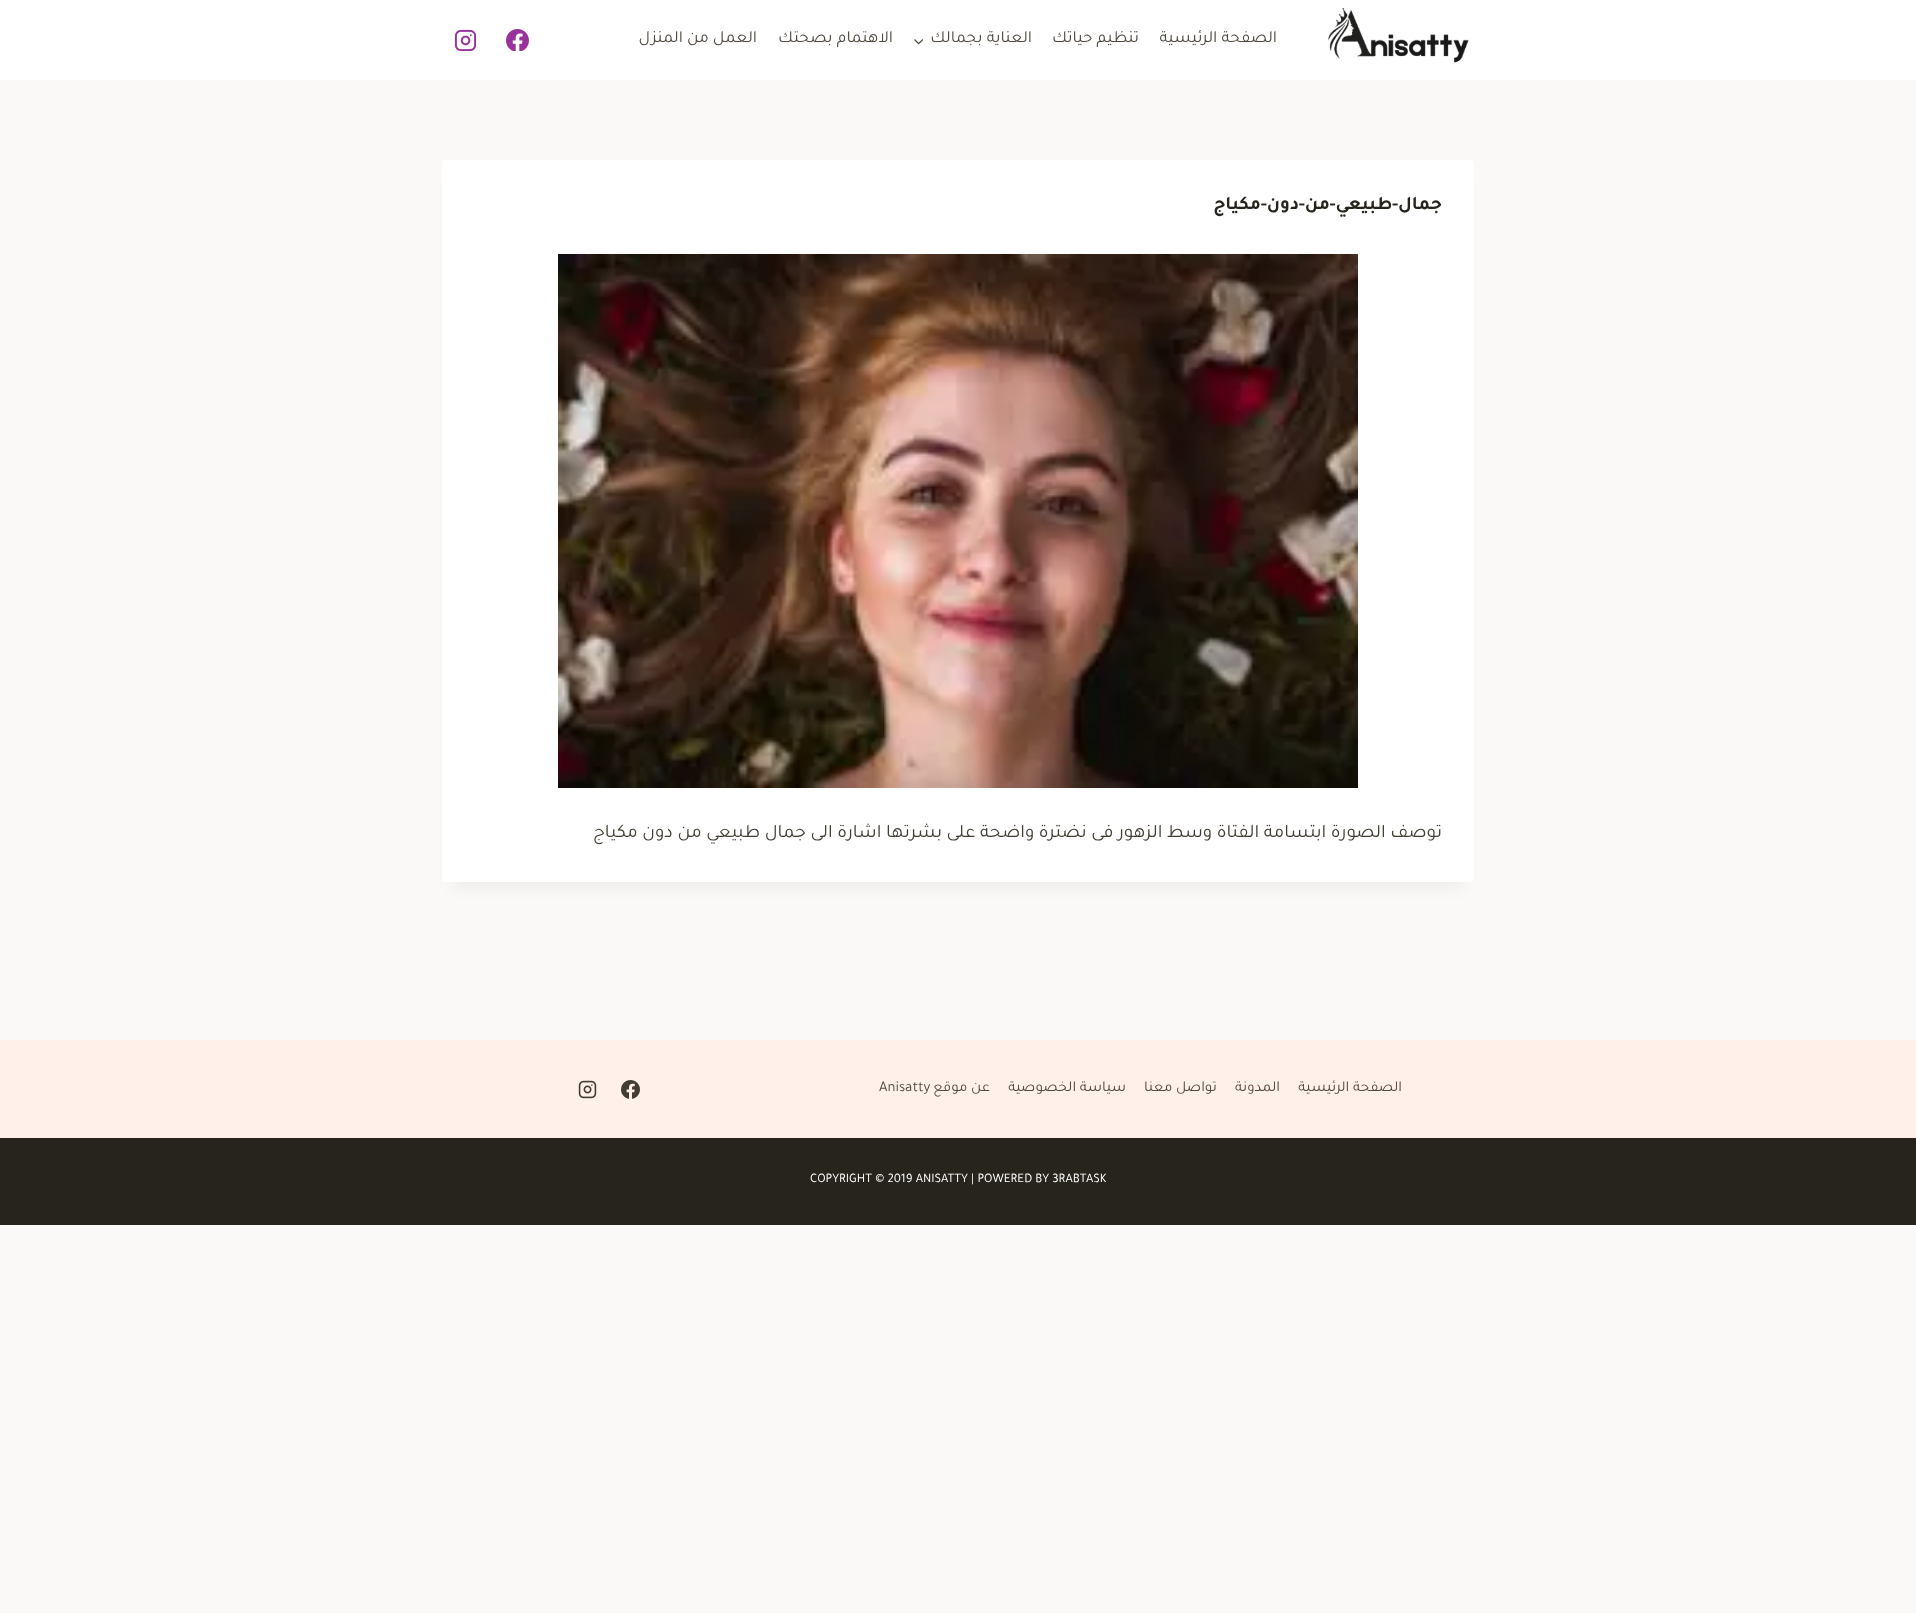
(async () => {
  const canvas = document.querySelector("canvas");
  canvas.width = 1916;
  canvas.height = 1613;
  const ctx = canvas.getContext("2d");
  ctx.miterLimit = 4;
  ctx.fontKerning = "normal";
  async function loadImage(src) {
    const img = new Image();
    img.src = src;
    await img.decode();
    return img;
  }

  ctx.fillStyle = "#faf9f7";
  ctx.fillRect(0, 0, 1916, 1613);
  ctx.fillStyle = "#ffffff";
  ctx.fillRect(0, 0, 1916, 80);
  ctx.drawImage(await loadImage("img/1.png"), 1328, 8, 141, 55);
  ctx.drawImage(await loadImage("img/2.png"), 914, 39, 10, 6);
  ctx.drawImage(await loadImage("img/3.png"), 506, 29, 23, 22);
  ctx.drawImage(await loadImage("img/4.png"), 454, 29, 22, 22);
  ctx.fillStyle = "rgba(0, 0, 0, 0.05)";
  ctx.filter = "blur(7.5px)";
  ctx.beginPath();
  ctx.rect(452, 185, 1012, 702);
  ctx.fill();
  ctx.filter = "none";
  ctx.fillStyle = "#ffffff";
  ctx.beginPath();
  ctx.roundRect(442, 160, 1032, 722, 4);
  ctx.fill();
  ctx.drawImage(await loadImage("img/5.png"), 558, 254, 800, 534);
  ctx.fillStyle = "#fff0ea";
  ctx.fillRect(0, 1040, 1916, 98);
  ctx.drawImage(await loadImage("img/6.png"), 621, 1080, 19, 19);
  ctx.drawImage(await loadImage("img/7.png"), 578, 1080, 19, 19);
  ctx.fillStyle = "#27241d";
  ctx.fillRect(0, 1138, 1916, 87);
  ctx.direction = "rtl";
  ctx.font = "17px Tajawal";
  ctx.fillStyle = "#504a40";
  for (const [text, x, y] of [
    ["الصفحة الرئيسية", 1277, 42],
    ["تنظيم حياتك", 1139, 42],
    ["العناية بجمالك", 1032, 42],
    ["الاهتمام بصحتك", 893, 42],
    ["العمل من المنزل", 757, 42],
  ]) {
    ctx.fillText(text, x, y);
  }
  ctx.font = "bold 19px Tajawal";
  ctx.fillStyle = "#27241d";
  ctx.fillText("جمال-طبيعي-من-دون-مكياج", 1442, 209);
  ctx.font = "19px Tajawal";
  ctx.fillStyle = "#423d33";
  ctx.fillText("توصف الصورة ابتسامة الفتاة وسط الزهور فى نضترة واضحة على بشرتها اشارة الى جمال طبيعي من دون مكياج", 1442, 837);
  ctx.font = "15px Tajawal";
  ctx.fillStyle = "#504a40";
  for (const [text, x, y] of [
    ["الصفحة الرئيسية", 1402, 1091],
    ["المدونة", 1280, 1091],
    ["تواصل معنا", 1217, 1091],
    ["سياسة الخصوصية", 1126, 1091],
    ["عن موقع", 990, 1091],
  ]) {
    ctx.fillText(text, x, y);
  }
  ctx.direction = "ltr";
  ctx.fillText("Anisatty", 879, 1091);
  ctx.font = "13px Tajawal";
  ctx.fillStyle = "#ffffff";
  ctx.fillText("COPYRIGHT © 2019 ANISATTY | POWERED BY 3RABTASK", 810, 1182);
})();
